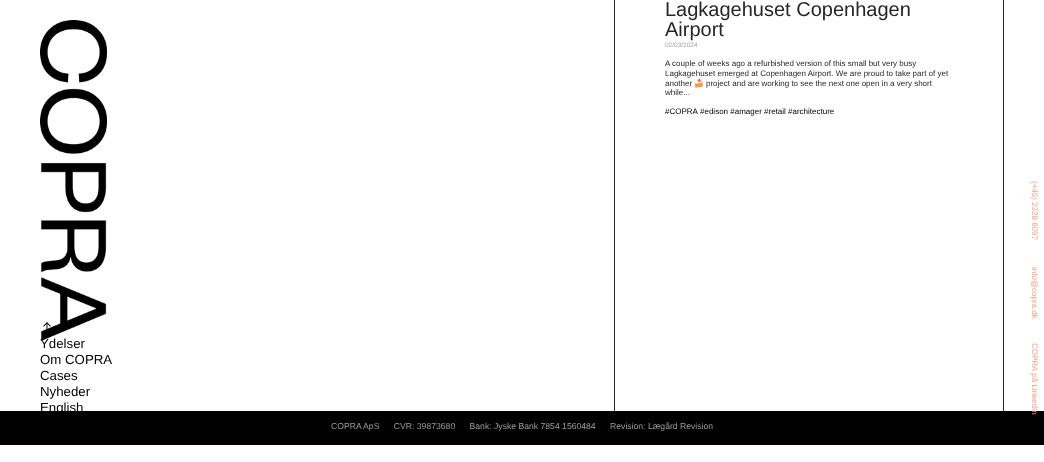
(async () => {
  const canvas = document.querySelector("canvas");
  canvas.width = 1044;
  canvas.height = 462;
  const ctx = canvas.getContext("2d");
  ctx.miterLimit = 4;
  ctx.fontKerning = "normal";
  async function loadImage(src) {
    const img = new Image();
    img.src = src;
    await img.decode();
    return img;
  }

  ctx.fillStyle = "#ffffff";
  ctx.fillRect(0, 0, 1044, 462);
  ctx.fillStyle = "#262626";
  ctx.fillRect(1003, 0, 1, 411);
  ctx.fillRect(614, 0, 1, 411);
  ctx.drawImage(await loadImage("img/1.png"), 40, 20, 67, 321);
  ctx.drawImage(await loadImage("img/2.png"), 43, 322, 8, 8);
  ctx.fillStyle = "#000000";
  ctx.fillRect(0, 411, 1044, 34);
  ctx.font = "20px Liberation Sans";
  ctx.fillStyle = "#262626";
  ctx.fillText("Lagkagehuset Copenhagen", 665, 16);
  ctx.fillText("Airport", 665, 36);
  ctx.font = "6.5px Liberation Sans";
  ctx.fillStyle = "#a6a6a6";
  ctx.fillText("02/03/2024", 665, 47);
  ctx.font = "8px Liberation Sans";
  ctx.fillStyle = "#262626";
  for (const [text, x, y] of [
    ["A couple of weeks ago a refurbished version of this small but very busy", 665, 66],
    ["Lagkagehuset emerged at Copenhagen Airport. We are proud to take part of yet", 665, 76],
    ["another", 665, 86],
  ]) {
    ctx.fillText(text, x, y);
  }
  ctx.font = "8px Noto Color Emoji";
  ctx.fillText("🍰", 694, 86);
  ctx.font = "8px Liberation Sans";
  ctx.fillText("project and are working to see the next one open in a very short", 706, 86);
  ctx.fillText("while...", 665, 95);
  ctx.fillStyle = "#000000";
  ctx.fillText("#COPRA", 665, 114);
  ctx.fillText("#edison #amager #retail #architecture", 700, 114);
  ctx.font = "13.25px Liberation Sans";
  for (const [text, x, y] of [
    ["Ydelser", 40, 348],
    ["Om COPRA", 40, 364],
    ["Cases", 40, 380],
    ["Nyheder", 40, 396],
    ["English", 40, 412],
  ]) {
    ctx.fillText(text, x, y);
  }
  ctx.font = "8px Liberation Sans";
  ctx.fillStyle = "#faa087";
  ctx.save();
  ctx.translate(1032, 181);
  ctx.rotate(90 * Math.PI / 180);
  ctx.fillText("(+45) 2328 6097", 0, 0);
  ctx.restore();
  ctx.save();
  ctx.translate(1032, 267);
  ctx.rotate(90 * Math.PI / 180);
  ctx.fillText("info@copra.dk", 0, 0);
  ctx.restore();
  ctx.save();
  ctx.translate(1032, 343);
  ctx.rotate(90 * Math.PI / 180);
  ctx.fillText("COPRA på LinkedIn", 0, 0);
  ctx.restore();
  ctx.font = "8.65px Liberation Sans";
  ctx.fillStyle = "#9c9c9c";
  ctx.fillText("COPRA ApS      CVR: 39873680      Bank: Jyske Bank 7854 1560484      Revision: Lægård Revision", 331, 429);
})();
